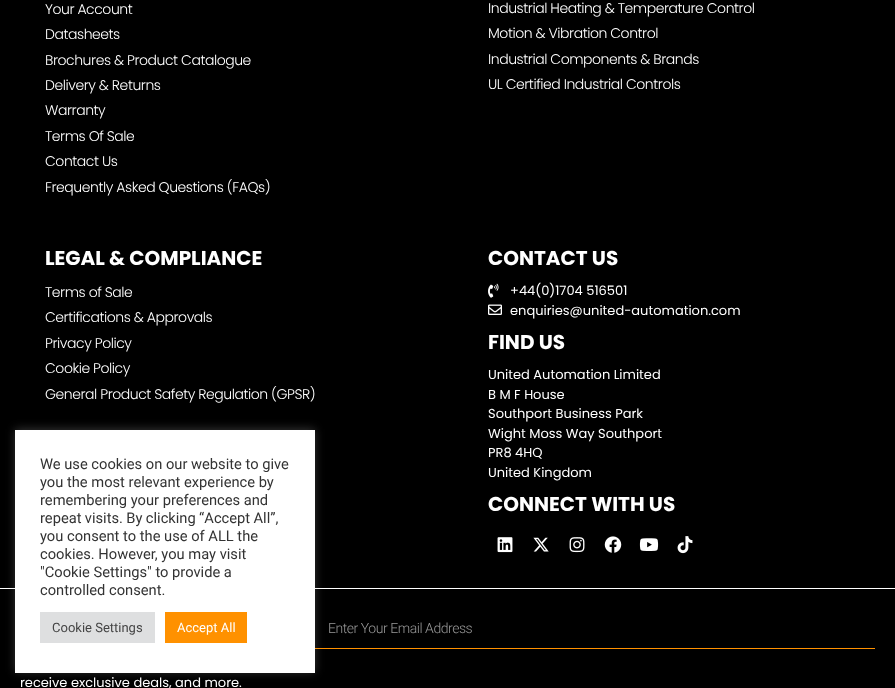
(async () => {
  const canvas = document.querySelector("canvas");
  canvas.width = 895;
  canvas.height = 688;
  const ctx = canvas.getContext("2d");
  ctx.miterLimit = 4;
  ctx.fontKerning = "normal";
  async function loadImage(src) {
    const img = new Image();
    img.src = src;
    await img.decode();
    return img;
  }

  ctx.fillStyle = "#ffffff";
  ctx.fillRect(0, 0, 895, 688);
  ctx.fillStyle = "#000000";
  ctx.fillRect(0, 0, 895, 588);
  ctx.drawImage(await loadImage("img/1.png"), 488, 283, 11, 15);
  ctx.drawImage(await loadImage("img/2.png"), 488, 304, 14, 11);
  ctx.drawImage(await loadImage("img/3.png"), 497, 537, 16, 16);
  ctx.drawImage(await loadImage("img/4.png"), 533, 537, 16, 15);
  ctx.drawImage(await loadImage("img/5.png"), 569, 537, 16, 16);
  ctx.drawImage(await loadImage("img/6.png"), 604, 536, 18, 17);
  ctx.drawImage(await loadImage("img/7.png"), 639, 538, 20, 13);
  ctx.drawImage(await loadImage("img/8.png"), 677, 536, 16, 18);
  ctx.fillRect(0, 589, 895, 99);
  ctx.fillStyle = "#ff9100";
  ctx.fillRect(312, 648, 563, 1);
  ctx.fillStyle = "rgba(172, 171, 171, 0.3)";
  ctx.filter = "blur(5px)";
  ctx.beginPath();
  ctx.rect(15, 429, 300, 243);
  ctx.fill();
  ctx.filter = "none";
  for (const [x, y, w, h, color] of [
    [15, 430, 300, 243, "#ffffff"],
    [40, 612, 115, 31, "#dedfe0"],
    [165, 612, 82, 31, "#ff9100"],
  ]) {
    ctx.fillStyle = color;
    ctx.fillRect(x, y, w, h);
  }
  ctx.letterSpacing = "-0.45px";
  ctx.font = "300 14px Poppins";
  ctx.fillStyle = "#ffffff";
  for (const [text, x, y] of [
    ["Your Account", 45, 14],
    ["Datasheets", 45, 39],
    ["Brochures & Product Catalogue", 45, 65],
    ["Delivery & Returns", 45, 90],
    ["Warranty", 45, 115],
    ["Terms Of Sale", 45, 141],
    ["Contact Us", 45, 166],
    ["Frequently Asked Questions (FAQs)", 45, 192],
    ["Industrial Heating & Temperature Control", 488, 13],
    ["Motion & Vibration Control", 488, 38],
    ["Industrial Components & Brands", 488, 64],
    ["UL Certified Industrial Controls", 488, 89],
  ]) {
    ctx.fillText(text, x, y);
  }
  ctx.letterSpacing = "0px";
  ctx.font = "bold 20px Poppins";
  ctx.fillText("LEGAL & COMPLIANCE", 45, 265);
  ctx.letterSpacing = "-0.45px";
  ctx.font = "300 14px Poppins";
  for (const [text, x, y] of [
    ["Terms of Sale", 45, 297],
    ["Certifications & Approvals", 45, 322],
    ["Privacy Policy", 45, 348],
    ["Cookie Policy", 45, 373],
    ["General Product Safety Regulation (GPSR)", 45, 399],
  ]) {
    ctx.fillText(text, x, y);
  }
  ctx.letterSpacing = "0px";
  ctx.font = "bold 20px Poppins";
  ctx.fillText("CONTACT US", 488, 265);
  ctx.font = "13px Poppins";
  ctx.fillText("+44(0)1704 516501", 510, 295);
  ctx.fillText("enquiries@united-automation.com", 510, 315);
  ctx.font = "bold 20px Poppins";
  ctx.fillText("FIND US", 488, 349);
  ctx.font = "13px Poppins";
  for (const [text, x, y] of [
    ["United Automation Limited", 488, 379],
    ["B M F House", 488, 399],
    ["Southport Business Park", 488, 418],
    ["Wight Moss Way Southport", 488, 438],
    ["PR8 4HQ", 488, 457],
    ["United Kingdom", 488, 477],
  ]) {
    ctx.fillText(text, x, y);
  }
  ctx.font = "bold 20px Poppins";
  ctx.fillText("CONNECT WITH US", 488, 511);
  ctx.letterSpacing = "-0.45px";
  ctx.font = "300 14px Roboto";
  ctx.fillStyle = "#999999";
  ctx.fillText("Enter Your Email Address", 328, 633);
  ctx.letterSpacing = "0px";
  ctx.font = "13px Poppins";
  ctx.fillStyle = "#ffffff";
  ctx.fillText("receive exclusive deals, and more.", 20, 687);
  ctx.font = "14.7px Roboto";
  ctx.fillStyle = "#333333";
  for (const [text, x, y] of [
    ["We use cookies on our website to give", 40, 469],
    ["you the most relevant experience by", 40, 487],
    ["remembering your preferences and", 40, 505],
  ]) {
    ctx.fillText(text, x, y);
  }
  ctx.wordSpacing = "-0.25px";
  ctx.fillText("repeat visits. By clicking “Accept All”,", 40, 523);
  ctx.wordSpacing = "0px";
  for (const [text, x, y] of [
    ["you consent to the use of ALL the", 40, 541],
    ["cookies. However, you may visit", 40, 559],
    ["\"Cookie Settings\" to provide a", 40, 577],
    ["controlled consent.", 40, 595],
  ]) {
    ctx.fillText(text, x, y);
  }
  ctx.font = "13px Roboto";
  ctx.fillStyle = "#444444";
  ctx.fillText("Cookie Settings", 52, 632);
  ctx.fillStyle = "#ffffff";
  ctx.fillText("Accept All", 177, 632);
})();
